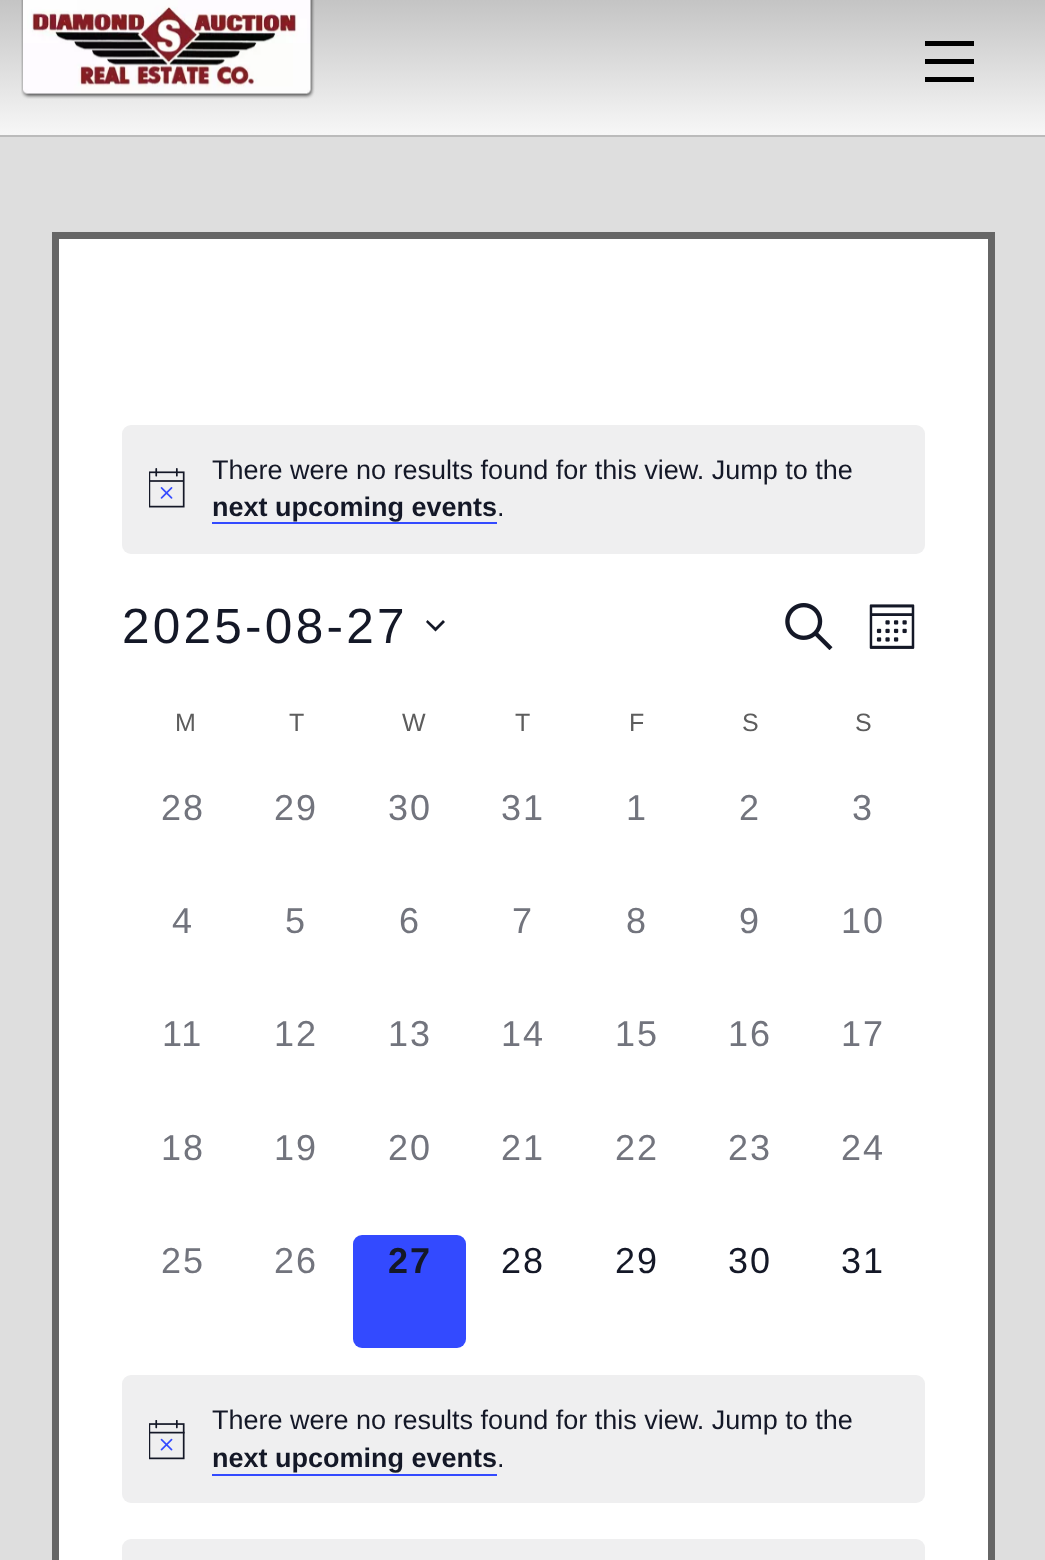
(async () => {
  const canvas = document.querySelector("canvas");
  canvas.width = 1045;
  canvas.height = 1560;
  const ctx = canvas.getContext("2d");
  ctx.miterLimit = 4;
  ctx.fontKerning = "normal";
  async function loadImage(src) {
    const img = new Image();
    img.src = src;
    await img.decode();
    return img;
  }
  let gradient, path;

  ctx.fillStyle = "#dedede";
  ctx.fillRect(0, 0, 1045, 1560);
  gradient = ctx.createLinearGradient(523, 0, 523, 135);
  gradient.addColorStop(0, "#c4c4c4");
  gradient.addColorStop(1, "#f7f7f7");
  ctx.fillStyle = gradient;
  ctx.fillRect(0, 0, 1045, 135);
  ctx.fillStyle = "#bbbbbb";
  ctx.fillRect(0, 135, 1045, 2);
  ctx.drawImage(await loadImage("img/1.png"), 21, 0, 294, 99);
  for (const [x, y, w, h, color] of [
    [925, 77, 49, 5, "#000000"],
    [925, 41, 49, 5, "#000000"],
    [925, 59, 49, 5, "#000000"],
  ]) {
    ctx.fillStyle = color;
    ctx.fillRect(x, y, w, h);
  }
  ctx.fillStyle = "#ffffff";
  ctx.beginPath();
  ctx.rect(55.5, 235.5, 936, 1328);
  ctx.fill();
  ctx.strokeStyle = "#666666";
  ctx.lineWidth = 7;
  ctx.stroke();
  ctx.fillStyle = "#efeff0";
  ctx.beginPath();
  ctx.roundRect(122, 425, 803, 129, 9);
  ctx.fill();
  ctx.drawImage(await loadImage("img/2.png"), 149, 468, 36, 40);
  ctx.fillStyle = "#334aff";
  ctx.fillRect(212, 522, 285, 2);
  ctx.fillStyle = "#141827";
  path = new Path2D("M427.5 620L435.5 627.5L443 620L445 622L435.5 631.5L426 622Z");
  ctx.fill(path, "evenodd");
  ctx.drawImage(await loadImage("img/3.png"), 785, 603, 48, 47);
  ctx.drawImage(await loadImage("img/4.png"), 869, 604, 46, 45);
  ctx.fillStyle = "#334aff";
  ctx.beginPath();
  ctx.roundRect(353, 1235, 113, 113, 9);
  ctx.fill();
  ctx.fillStyle = "#efeff0";
  ctx.beginPath();
  ctx.roundRect(122, 1375, 803, 128, 9);
  ctx.fill();
  ctx.drawImage(await loadImage("img/5.png"), 149, 1420, 36, 40);
  ctx.fillStyle = "#334aff";
  ctx.fillRect(212, 1474, 285, 2);
  ctx.fillStyle = "#efeff0";
  ctx.beginPath();
  ctx.roundRect(122, 1539, 803, 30, 9);
  ctx.fill();
  ctx.font = "27px Liberation Sans";
  ctx.fillStyle = "#141827";
  ctx.fillText("There were no results found for this view. Jump to the", 212, 479);
  ctx.font = "bold 27px Liberation Sans";
  ctx.fillText("next upcoming events", 212, 516);
  ctx.font = "27px Liberation Sans";
  ctx.fillText(".", 497, 516);
  ctx.letterSpacing = "3.25px";
  ctx.font = "49.5px Liberation Sans";
  ctx.fillText("2025-08-27", 122, 643);
  ctx.letterSpacing = "0px";
  ctx.font = "25px Liberation Sans";
  ctx.fillStyle = "#5d5d5d";
  for (const [text, x, y] of [
    ["M", 175, 731],
    ["T", 289, 731],
    ["W", 402, 731],
    ["T", 515, 731],
    ["F", 629, 731],
    ["S", 742, 731],
    ["S", 855, 731],
  ]) {
    ctx.fillText(text, x, y);
  }
  ctx.letterSpacing = "2px";
  ctx.font = "36px Liberation Sans";
  ctx.fillStyle = "#72747d";
  for (const [text, x, y] of [
    ["28", 161, 820],
    ["29", 274, 820],
    ["30", 388, 820],
    ["31", 501, 820],
    ["1", 626, 820],
    ["2", 739, 820],
    ["3", 852, 820],
    ["4", 172, 933],
    ["5", 285, 933],
    ["6", 399, 933],
    ["7", 512, 933],
    ["8", 626, 933],
    ["9", 739, 933],
    ["10", 841, 933],
    ["11", 162, 1046],
    ["12", 274, 1046],
    ["13", 388, 1046],
    ["14", 501, 1046],
    ["15", 615, 1046],
    ["16", 728, 1046],
    ["17", 841, 1046],
    ["18", 161, 1160],
    ["19", 274, 1160],
    ["20", 388, 1160],
    ["21", 501, 1160],
    ["22", 615, 1160],
    ["23", 728, 1160],
    ["24", 841, 1160],
    ["25", 161, 1273],
    ["26", 274, 1273],
  ]) {
    ctx.fillText(text, x, y);
  }
  ctx.font = "bold 36px Liberation Sans";
  ctx.fillStyle = "#141827";
  ctx.fillText("27", 388, 1273);
  ctx.font = "36px Liberation Sans";
  for (const [text, x, y] of [
    ["28", 501, 1273],
    ["29", 615, 1273],
    ["30", 728, 1273],
    ["31", 841, 1273],
  ]) {
    ctx.fillText(text, x, y);
  }
  ctx.letterSpacing = "0px";
  ctx.font = "27px Liberation Sans";
  ctx.fillText("There were no results found for this view. Jump to the", 212, 1429);
  ctx.font = "bold 27px Liberation Sans";
  ctx.fillText("next upcoming events", 212, 1467);
  ctx.font = "27px Liberation Sans";
  ctx.fillText(".", 497, 1467);
})();
